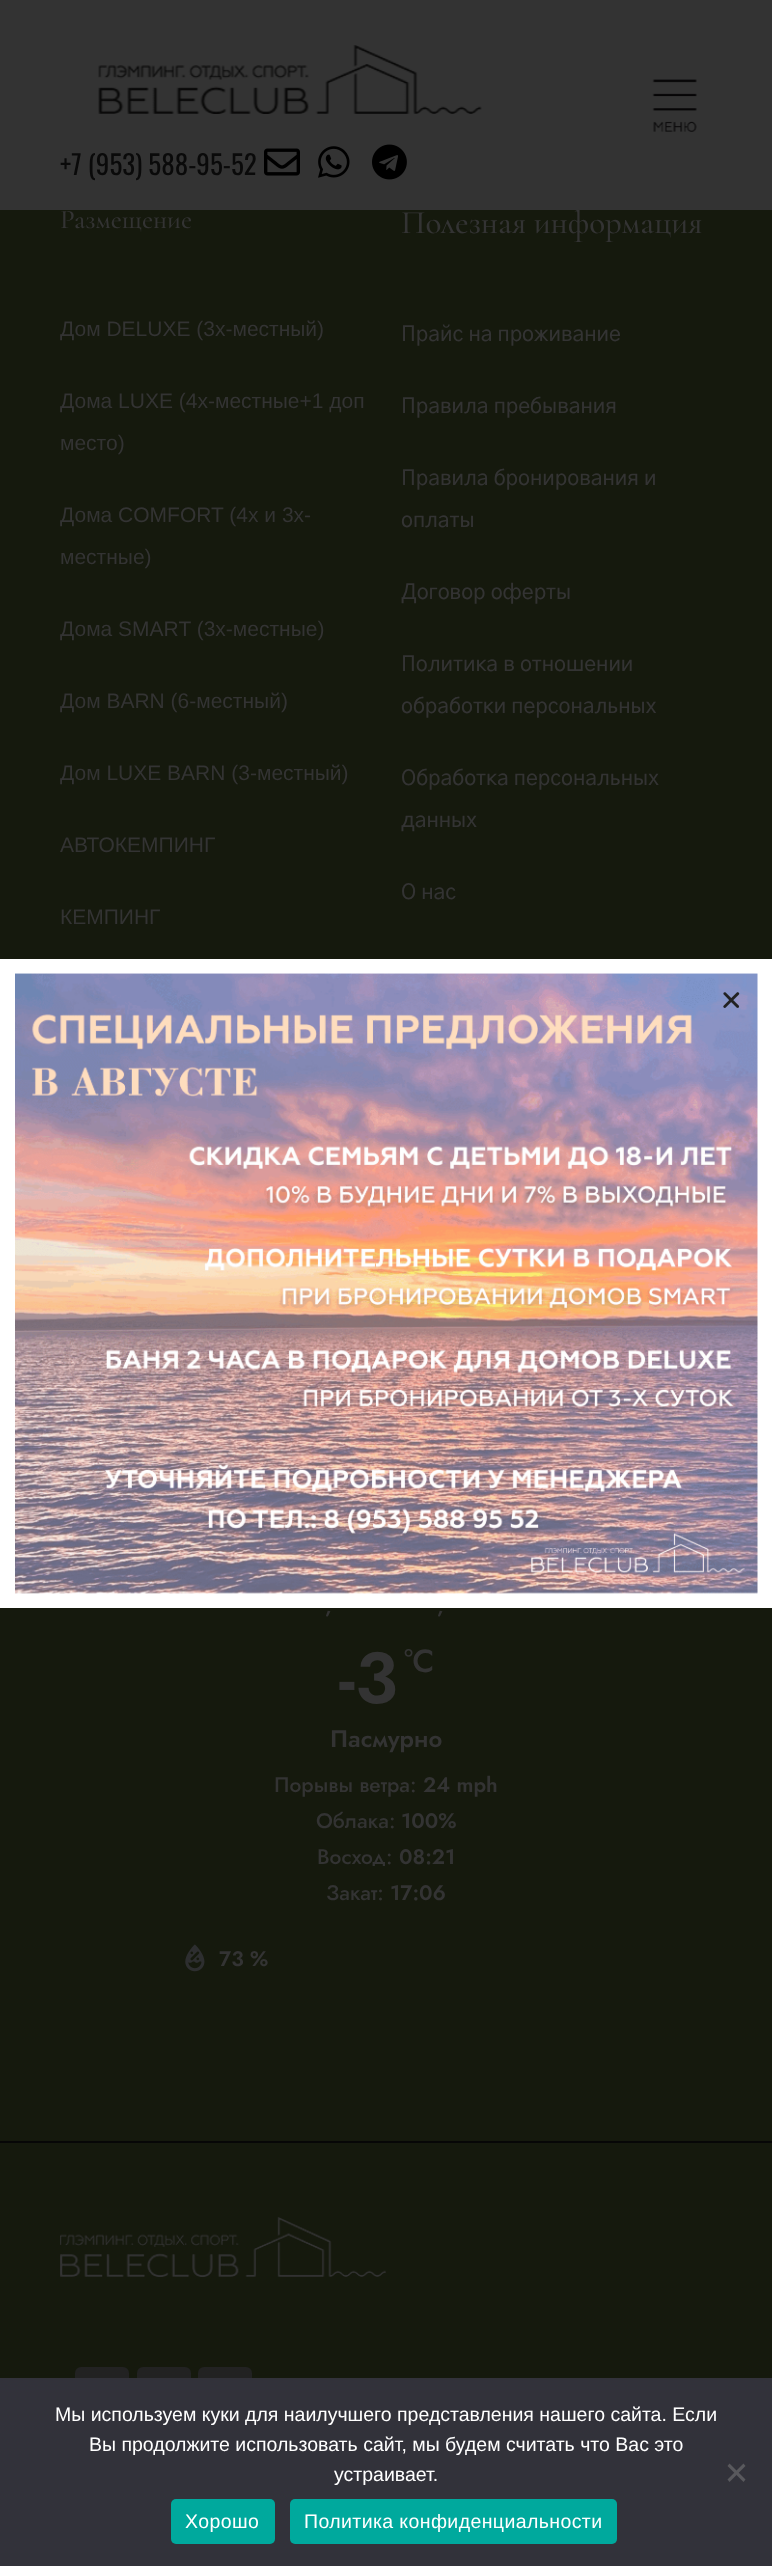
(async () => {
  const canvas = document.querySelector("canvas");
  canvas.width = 772;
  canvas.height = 2566;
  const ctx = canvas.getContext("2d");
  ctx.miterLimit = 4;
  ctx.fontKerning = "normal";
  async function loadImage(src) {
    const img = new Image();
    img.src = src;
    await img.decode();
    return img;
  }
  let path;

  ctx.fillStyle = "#15190d";
  ctx.fillRect(0, 0, 772, 2566);
  ctx.fillStyle = "#333333";
  ctx.fillRect(0, 0, 772, 210);
  ctx.drawImage(await loadImage("img/1.png"), 652, 79, 45, 53);
  ctx.drawImage(await loadImage("img/2.png"), 98, 45, 384, 69);
  ctx.drawImage(await loadImage("img/3.png"), 264, 148, 36, 28);
  ctx.drawImage(await loadImage("img/4.png"), 318, 146, 32, 32);
  ctx.drawImage(await loadImage("img/5.png"), 372, 144, 35, 36);
  ctx.drawImage(await loadImage("img/6.png"), 185, 1944, 20, 28);
  ctx.fillStyle = "#070707";
  ctx.fillRect(0, 2141, 772, 2);
  ctx.drawImage(await loadImage("img/7.png"), 60, 2217, 326, 60);
  ctx.fillStyle = "#222222";
  ctx.beginPath();
  ctx.roundRect(75, 2367, 54, 54, 6);
  ctx.fill();
  ctx.beginPath();
  ctx.roundRect(137, 2367, 54, 54, 6);
  ctx.fill();
  ctx.beginPath();
  ctx.roundRect(198, 2367, 54, 54, 6);
  ctx.fill();
  ctx.fillStyle = "#ffffff";
  ctx.fillRect(0, 959, 772, 649);
  ctx.drawImage(await loadImage("img/8.png"), 15, 973, 743, 621);
  ctx.drawImage(await loadImage("img/9.png"), 723, 992, 17, 16);
  ctx.fillStyle = "#32323a";
  ctx.fillRect(0, 2378, 772, 188);
  ctx.fillStyle = "#59595d";
  path = new Path2D("M743.5 2463.5L745.5 2466L729.5 2482L727.5 2479.5Z");
  ctx.fill(path);
  path = new Path2D("M727.5 2466L729.5 2463.5L745.5 2479.5L743.5 2482Z");
  ctx.fill(path);
  ctx.fillStyle = "#00a99d";
  ctx.beginPath();
  ctx.roundRect(171, 2499, 104, 45, 5);
  ctx.fill();
  ctx.beginPath();
  ctx.roundRect(290, 2499, 327, 45, 5);
  ctx.fill();
  ctx.font = "27px Oswald";
  ctx.fillStyle = "#0a0a0a";
  ctx.fillText("+7 (953) 588-95-52", 60, 175);
  ctx.font = "500 27px Cormorant Garamond";
  ctx.fillStyle = "#333333";
  ctx.fillText("Размещение", 60, 228);
  ctx.font = "21px Liberation Sans";
  for (const [text, x, y] of [
    ["Дом DELUXE (3х-местный)", 60, 336],
    ["Дома LUXE (4х-местные+1 доп", 60, 408],
    ["место)", 60, 450],
    ["Дома COMFORT (4х и 3х-", 60, 522],
    ["местные)", 60, 564],
    ["Дома SMART (3х-местные)", 60, 636],
    ["Дом BARN (6-местный)", 60, 708],
    ["Дом LUXE BARN (3-местный)", 60, 780],
    ["АВТОКЕМПИНГ", 60, 852],
    ["КЕМПИНГ", 60, 924],
  ]) {
    ctx.fillText(text, x, y);
  }
  ctx.font = "500 33px Cormorant Garamond";
  ctx.fillText("Полезная информация", 401, 233);
  ctx.font = "500 21px 'Gothic A1'";
  for (const [text, x, y] of [
    ["Прайс на проживание", 401, 341],
    ["Правила пребывания", 401, 413],
    ["Правила бронирования и", 401, 485],
    ["оплаты", 401, 527],
    ["Договор оферты", 401, 599],
    ["Политика в отношении", 401, 671],
    ["обработки персональных", 401, 713],
    ["Обработка персональных", 401, 785],
    ["данных", 401, 827],
    ["О нас", 401, 899],
  ]) {
    ctx.fillText(text, x, y);
  }
  ctx.font = "600 21px Jost";
  ctx.fillText(",", 325, 1613);
  ctx.fillText(",", 437, 1613);
  ctx.font = "600 72px Jost";
  ctx.fillText("-3", 339, 1703);
  ctx.font = "500 32px Jost";
  ctx.fillText("°C", 404, 1672);
  ctx.font = "600 24px Jost";
  ctx.fillText("Пасмурно", 330, 1747);
  ctx.font = "500 21px Jost";
  ctx.fillText("Порывы ветра:", 274, 1792);
  ctx.font = "600 21px Jost";
  ctx.fillText("24 mph", 423, 1792);
  ctx.font = "500 21px Jost";
  ctx.fillText("Облака:", 316, 1828);
  ctx.font = "600 21px Jost";
  ctx.fillText("100%", 401, 1828);
  ctx.font = "500 21px Jost";
  ctx.fillText("Восход:", 317, 1864);
  ctx.font = "600 21px Jost";
  ctx.fillText("08:21", 399, 1864);
  ctx.font = "500 21px Jost";
  ctx.fillText("Закат:", 326, 1900);
  ctx.font = "600 21px Jost";
  ctx.fillText("17:06", 390, 1900);
  ctx.fillText("73 %", 219, 1966);
  ctx.font = "19.5px Liberation Sans";
  ctx.fillStyle = "#ffffff";
  for (const [text, x, y] of [
    ["Мы используем куки для наилучшего представления нашего сайта. Если", 55, 2421],
    ["Вы продолжите использовать сайт, мы будем считать что Вас это", 89, 2451],
    ["устраивает.", 334, 2481],
  ]) {
    ctx.fillText(text, x, y);
  }
  ctx.letterSpacing = "0.4px";
  ctx.fillText("Хорошо", 185, 2528);
  ctx.fillText("Политика конфиденциальности", 304, 2528);
})();
